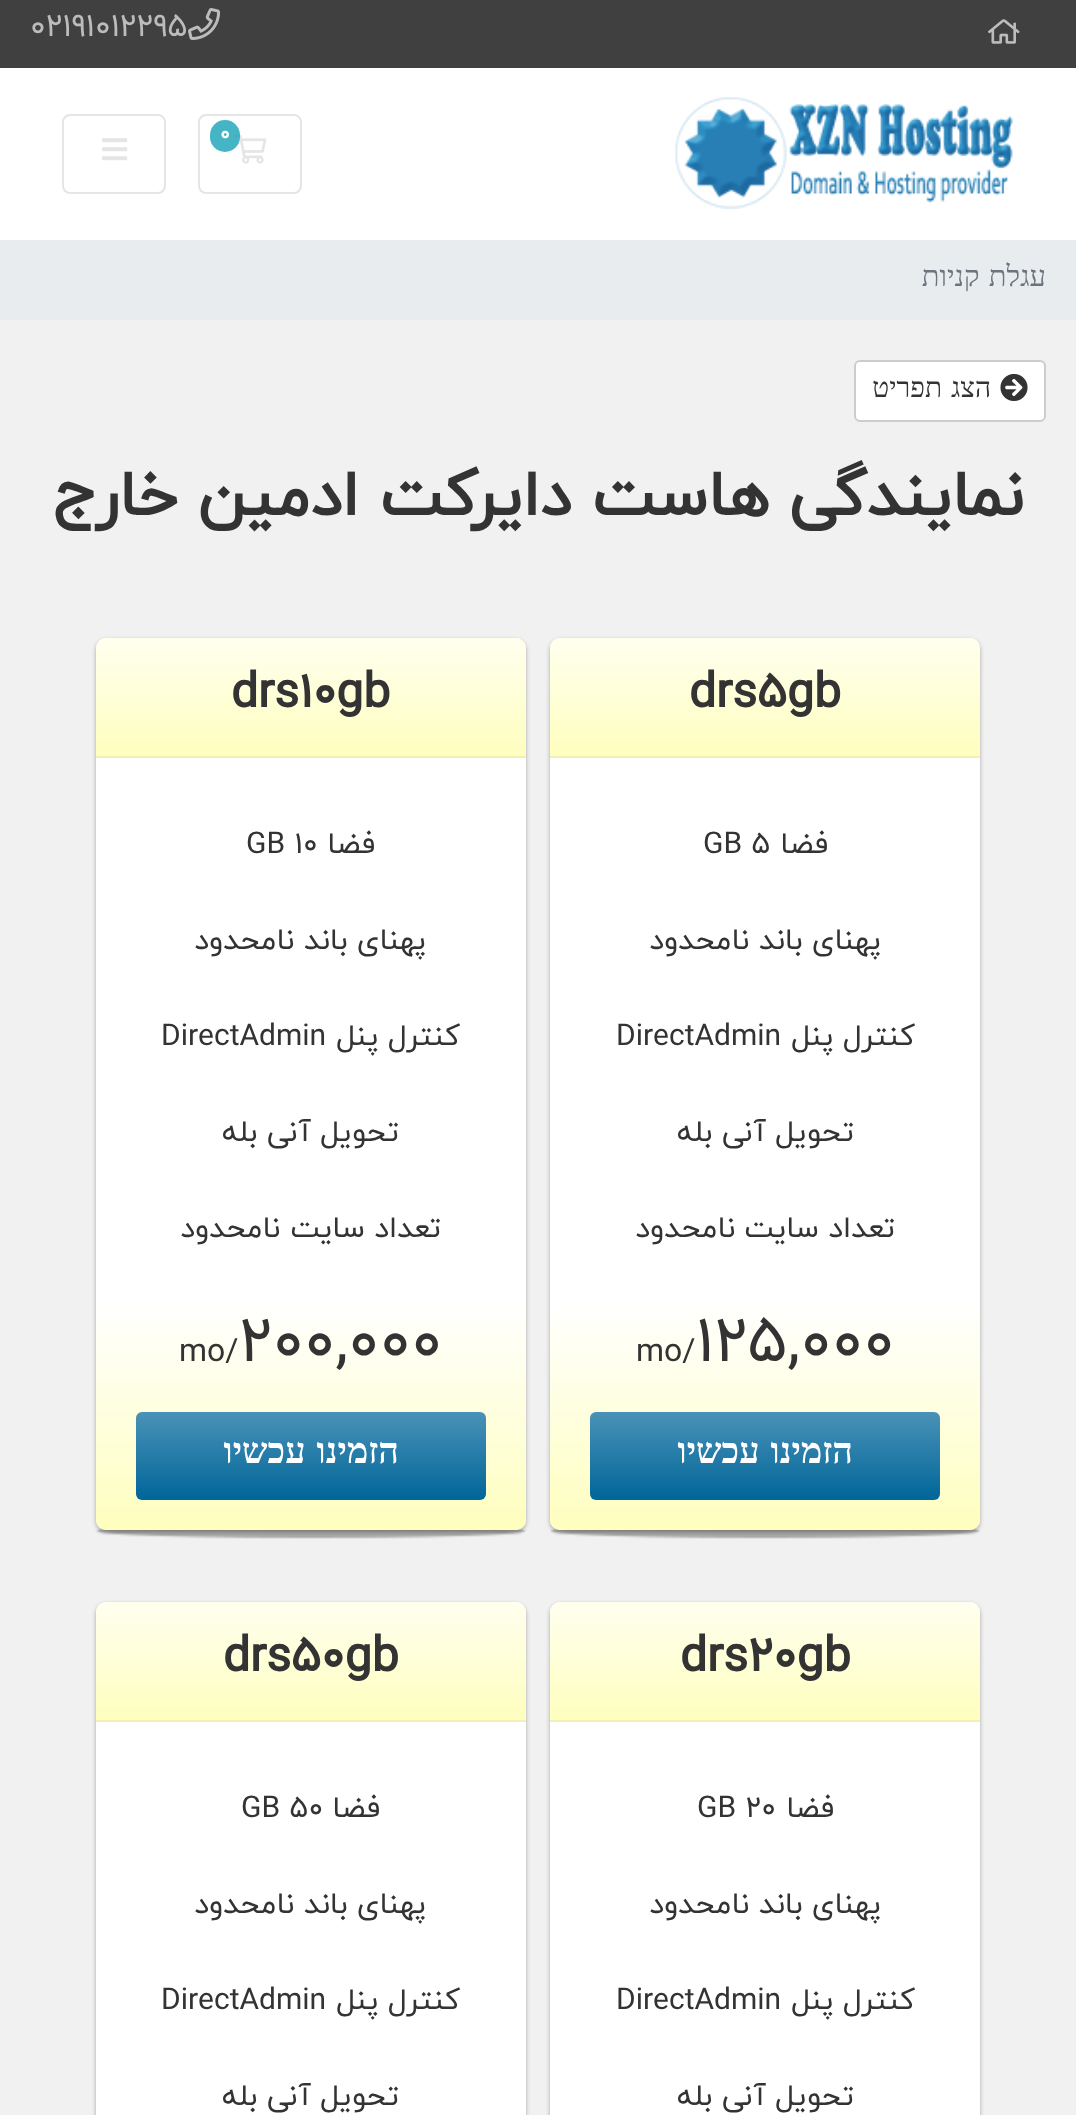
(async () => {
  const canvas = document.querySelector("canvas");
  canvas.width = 1076;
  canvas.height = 2115;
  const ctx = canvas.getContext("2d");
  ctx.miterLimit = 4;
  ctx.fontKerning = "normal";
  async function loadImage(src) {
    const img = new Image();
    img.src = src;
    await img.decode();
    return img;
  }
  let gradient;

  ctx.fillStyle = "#f1f1f1";
  ctx.fillRect(0, 0, 1076, 2115);
  ctx.fillStyle = "#ffffff";
  ctx.fillRect(0, 68, 1076, 172);
  ctx.fillStyle = "#404040";
  ctx.fillRect(0, 0, 1076, 68);
  ctx.drawImage(await loadImage("img/1.png"), 988, 19, 32, 25);
  ctx.drawImage(await loadImage("img/2.png"), 188, 8, 33, 32);
  ctx.drawImage(await loadImage("img/3.png"), 675, 97, 338, 112);
  ctx.beginPath();
  ctx.roundRect(199, 115, 102, 78, 7);
  ctx.strokeStyle = "#e5e5e5";
  ctx.lineWidth = 2;
  ctx.stroke();
  ctx.drawImage(await loadImage("img/4.png"), 234, 134, 33, 30);
  ctx.fillStyle = "rgba(23, 162, 184, 0.8)";
  ctx.beginPath();
  ctx.roundRect(210, 120, 30, 32, 15);
  ctx.fill();
  ctx.beginPath();
  ctx.roundRect(63, 115, 102, 78, 7);
  ctx.stroke();
  ctx.drawImage(await loadImage("img/5.png"), 102, 138, 26, 23);
  ctx.fillStyle = "#e9ecef";
  ctx.fillRect(0, 240, 1076, 80);
  ctx.fillStyle = "#ffffff";
  ctx.beginPath();
  ctx.roundRect(855, 361, 190, 60, 5);
  ctx.fill();
  ctx.strokeStyle = "#cccccc";
  ctx.stroke();
  ctx.drawImage(await loadImage("img/6.png"), 1000, 374, 28, 27);
  ctx.drawImage(await loadImage("img/7.png"), 550, 1528, 430, 11);
  ctx.fillStyle = "rgba(0, 0, 0, 0.3)";
  ctx.filter = "blur(2px)";
  ctx.beginPath();
  ctx.roundRect(550, 640, 430, 892, 10);
  ctx.fill();
  ctx.filter = "none";
  ctx.fillStyle = "#ffffff";
  ctx.beginPath();
  ctx.roundRect(550, 638, 430, 892, 10);
  ctx.fill();
  gradient = ctx.createLinearGradient(765, 638, 765, 758);
  gradient.addColorStop(0, "#ffffef");
  gradient.addColorStop(1, "#fefebe");
  ctx.fillStyle = gradient;
  ctx.beginPath();
  ctx.roundRect(550, 638, 430, 120, [10, 10, 0, 0]);
  ctx.fill();
  ctx.fillStyle = "#f1f1b6";
  ctx.fillRect(550, 756, 430, 2);
  gradient = ctx.createLinearGradient(765, 1298, 765, 1530);
  gradient.addColorStop(0.02, "#ffffff");
  gradient.addColorStop(1, "#fefebe");
  ctx.fillStyle = gradient;
  ctx.beginPath();
  ctx.roundRect(550, 1298, 430, 232, [0, 0, 10, 10]);
  ctx.fill();
  gradient = ctx.createLinearGradient(765, 1412, 765, 1500);
  gradient.addColorStop(0, "#4a92b7");
  gradient.addColorStop(1, "#006699");
  ctx.fillStyle = gradient;
  ctx.beginPath();
  ctx.roundRect(590, 1412, 350, 88, 6);
  ctx.fill();
  ctx.drawImage(await loadImage("img/7.png"), 96, 1528, 430, 11);
  ctx.fillStyle = "rgba(0, 0, 0, 0.3)";
  ctx.filter = "blur(2px)";
  ctx.beginPath();
  ctx.roundRect(96, 640, 430, 892, 10);
  ctx.fill();
  ctx.filter = "none";
  ctx.fillStyle = "#ffffff";
  ctx.beginPath();
  ctx.roundRect(96, 638, 430, 892, 10);
  ctx.fill();
  gradient = ctx.createLinearGradient(311, 638, 311, 758);
  gradient.addColorStop(0, "#ffffef");
  gradient.addColorStop(1, "#fefebe");
  ctx.fillStyle = gradient;
  ctx.beginPath();
  ctx.roundRect(96, 638, 430, 120, [10, 10, 0, 0]);
  ctx.fill();
  ctx.fillStyle = "#f1f1b6";
  ctx.fillRect(96, 756, 430, 2);
  gradient = ctx.createLinearGradient(311, 1298, 311, 1530);
  gradient.addColorStop(0.02, "#ffffff");
  gradient.addColorStop(1, "#fefebe");
  ctx.fillStyle = gradient;
  ctx.beginPath();
  ctx.roundRect(96, 1298, 430, 232, [0, 0, 10, 10]);
  ctx.fill();
  gradient = ctx.createLinearGradient(311, 1412, 311, 1500);
  gradient.addColorStop(0, "#4a92b7");
  gradient.addColorStop(1, "#006699");
  ctx.fillStyle = gradient;
  ctx.beginPath();
  ctx.roundRect(136, 1412, 350, 88, 6);
  ctx.fill();
  ctx.fillStyle = "rgba(0, 0, 0, 0.3)";
  ctx.filter = "blur(2px)";
  ctx.beginPath();
  ctx.roundRect(550, 1604, 430, 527, 10);
  ctx.fill();
  ctx.filter = "none";
  ctx.fillStyle = "#ffffff";
  ctx.beginPath();
  ctx.roundRect(550, 1602, 430, 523, 10);
  ctx.fill();
  gradient = ctx.createLinearGradient(765, 1602, 765, 1722);
  gradient.addColorStop(0, "#ffffef");
  gradient.addColorStop(1, "#fefebe");
  ctx.fillStyle = gradient;
  ctx.beginPath();
  ctx.roundRect(550, 1602, 430, 120, [10, 10, 0, 0]);
  ctx.fill();
  ctx.fillStyle = "#f1f1b6";
  ctx.fillRect(550, 1720, 430, 2);
  ctx.fillStyle = "rgba(0, 0, 0, 0.3)";
  ctx.filter = "blur(2px)";
  ctx.beginPath();
  ctx.roundRect(96, 1604, 430, 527, 10);
  ctx.fill();
  ctx.filter = "none";
  ctx.fillStyle = "#ffffff";
  ctx.beginPath();
  ctx.roundRect(96, 1602, 430, 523, 10);
  ctx.fill();
  gradient = ctx.createLinearGradient(311, 1602, 311, 1722);
  gradient.addColorStop(0, "#ffffef");
  gradient.addColorStop(1, "#fefebe");
  ctx.fillStyle = gradient;
  ctx.beginPath();
  ctx.roundRect(96, 1602, 430, 120, [10, 10, 0, 0]);
  ctx.fill();
  ctx.fillStyle = "#f1f1b6";
  ctx.fillRect(96, 1720, 430, 2);
  ctx.font = "32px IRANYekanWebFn";
  ctx.fillStyle = "#bcbcbc";
  ctx.fillText("02191012295", 30, 36);
  ctx.font = "bold 20px IRANYekanWebFn";
  ctx.fillStyle = "#ffffff";
  ctx.fillText("0", 220, 140);
  ctx.wordSpacing = "2px";
  ctx.direction = "rtl";
  ctx.font = "29px Liberation Serif";
  ctx.fillStyle = "#6c757d";
  ctx.fillText("עגלת קניות", 1046, 286);
  ctx.font = "28px Liberation Serif";
  ctx.fillStyle = "#333333";
  ctx.fillText("הצג תפריט", 991, 397);
  ctx.wordSpacing = "0px";
  ctx.font = "bold 64px IRANYekanWebFn";
  ctx.fillText("نمایندگی هاست دایرکت ادمین خارج", 1023, 515);
  ctx.direction = "ltr";
  ctx.font = "bold 48px IRANYekanWebFn";
  ctx.fillText("drs5gb", 689, 707);
  ctx.direction = "rtl";
  ctx.font = "30px IRANYekanWebFn";
  ctx.fillText("فضا", 828, 853);
  ctx.direction = "ltr";
  ctx.fillText("GB 5", 703, 853);
  ctx.direction = "rtl";
  for (const [text, x, y] of [
    ["پهنای باند", 881, 949],
    ["نامحدود", 749, 949],
    ["کنترل پنل", 915, 1045],
  ]) {
    ctx.fillText(text, x, y);
  }
  ctx.direction = "ltr";
  ctx.fillText("DirectAdmin", 616, 1045);
  ctx.direction = "rtl";
  for (const [text, x, y] of [
    ["تحویل آنی", 854, 1141],
    ["بله", 712, 1141],
    ["تعداد سایت", 895, 1237],
    ["نامحدود", 735, 1237],
  ]) {
    ctx.fillText(text, x, y);
  }
  ctx.direction = "ltr";
  ctx.font = "64px IRANYekanWebFn";
  ctx.fillText("125,000", 696, 1361);
  ctx.font = "32px IRANYekanWebFn";
  ctx.fillText("mo/", 636, 1361);
  ctx.wordSpacing = "2px";
  ctx.direction = "rtl";
  ctx.font = "bold 36px Liberation Serif";
  ctx.fillStyle = "#ffffff";
  ctx.fillText("הזמינו עכשיו", 853, 1463);
  ctx.wordSpacing = "0px";
  ctx.direction = "ltr";
  ctx.font = "bold 48px IRANYekanWebFn";
  ctx.fillStyle = "#333333";
  ctx.fillText("drs10gb", 231, 707);
  ctx.direction = "rtl";
  ctx.font = "30px IRANYekanWebFn";
  ctx.fillText("فضا", 375, 853);
  ctx.direction = "ltr";
  ctx.fillText("GB 10", 246, 853);
  ctx.direction = "rtl";
  for (const [text, x, y] of [
    ["پهنای باند", 426, 949],
    ["نامحدود", 294, 949],
    ["کنترل پنل", 460, 1045],
  ]) {
    ctx.fillText(text, x, y);
  }
  ctx.direction = "ltr";
  ctx.fillText("DirectAdmin", 161, 1045);
  ctx.direction = "rtl";
  for (const [text, x, y] of [
    ["تحویل آنی", 399, 1141],
    ["بله", 257, 1141],
    ["تعداد سایت", 441, 1237],
    ["نامحدود", 280, 1237],
  ]) {
    ctx.fillText(text, x, y);
  }
  ctx.direction = "ltr";
  ctx.font = "64px IRANYekanWebFn";
  ctx.fillText("200,000", 239, 1361);
  ctx.font = "32px IRANYekanWebFn";
  ctx.fillText("mo/", 179, 1361);
  ctx.wordSpacing = "2px";
  ctx.direction = "rtl";
  ctx.font = "bold 36px Liberation Serif";
  ctx.fillStyle = "#ffffff";
  ctx.fillText("הזמינו עכשיו", 399, 1463);
  ctx.wordSpacing = "0px";
  ctx.direction = "ltr";
  ctx.font = "bold 48px IRANYekanWebFn";
  ctx.fillStyle = "#333333";
  ctx.fillText("drs20gb", 680, 1671);
  ctx.direction = "rtl";
  ctx.font = "30px IRANYekanWebFn";
  ctx.fillText("فضا", 834, 1817);
  ctx.direction = "ltr";
  ctx.fillText("GB 20", 697, 1817);
  ctx.direction = "rtl";
  for (const [text, x, y] of [
    ["پهنای باند", 881, 1913],
    ["نامحدود", 749, 1913],
    ["کنترل پنل", 915, 2009],
  ]) {
    ctx.fillText(text, x, y);
  }
  ctx.direction = "ltr";
  ctx.fillText("DirectAdmin", 616, 2009);
  ctx.direction = "rtl";
  ctx.fillText("تحویل آنی", 854, 2105);
  ctx.fillText("بله", 712, 2105);
  ctx.direction = "ltr";
  ctx.font = "bold 48px IRANYekanWebFn";
  ctx.fillText("drs50gb", 223, 1671);
  ctx.direction = "rtl";
  ctx.font = "30px IRANYekanWebFn";
  ctx.fillText("فضا", 380, 1817);
  ctx.direction = "ltr";
  ctx.fillText("GB 50", 241, 1817);
  ctx.direction = "rtl";
  for (const [text, x, y] of [
    ["پهنای باند", 426, 1913],
    ["نامحدود", 294, 1913],
    ["کنترل پنل", 460, 2009],
  ]) {
    ctx.fillText(text, x, y);
  }
  ctx.direction = "ltr";
  ctx.fillText("DirectAdmin", 161, 2009);
  ctx.direction = "rtl";
  ctx.fillText("تحویل آنی", 399, 2105);
  ctx.fillText("بله", 257, 2105);
})();
